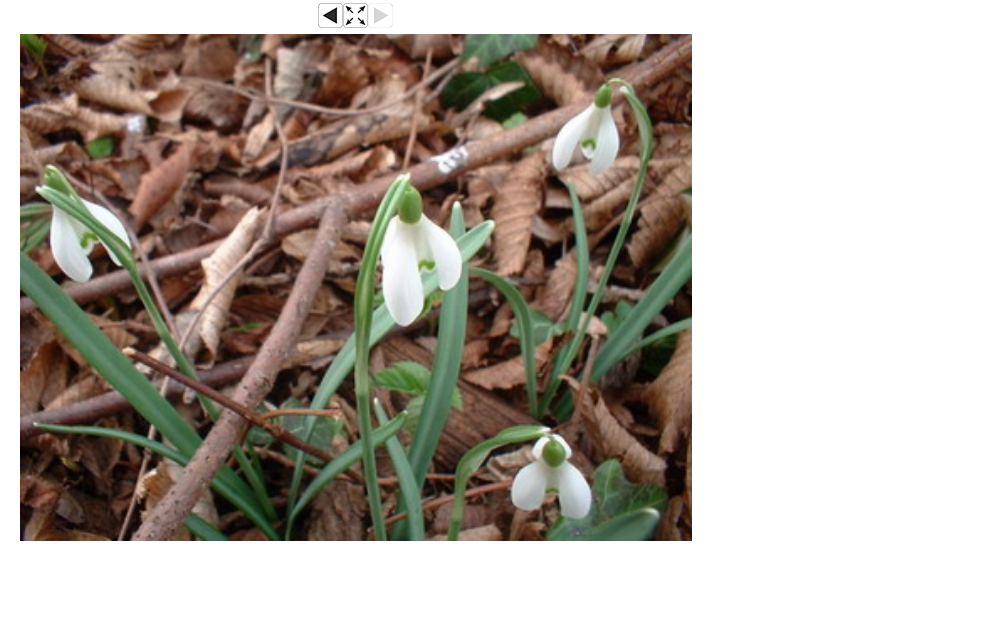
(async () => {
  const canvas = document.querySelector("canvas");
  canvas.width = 992;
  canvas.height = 637;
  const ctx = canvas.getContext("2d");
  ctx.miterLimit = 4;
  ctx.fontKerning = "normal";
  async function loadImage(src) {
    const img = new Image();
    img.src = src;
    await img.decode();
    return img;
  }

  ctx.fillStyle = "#ffffff";
  ctx.fillRect(0, 0, 992, 637);
  ctx.drawImage(await loadImage("img/1.png"), 318, 3, 25, 25);
  ctx.drawImage(await loadImage("img/2.png"), 343, 3, 25, 25);
  ctx.drawImage(await loadImage("img/3.png"), 368, 3, 25, 25);
  ctx.drawImage(await loadImage("img/4.png"), 20, 34, 672, 507);
})();
